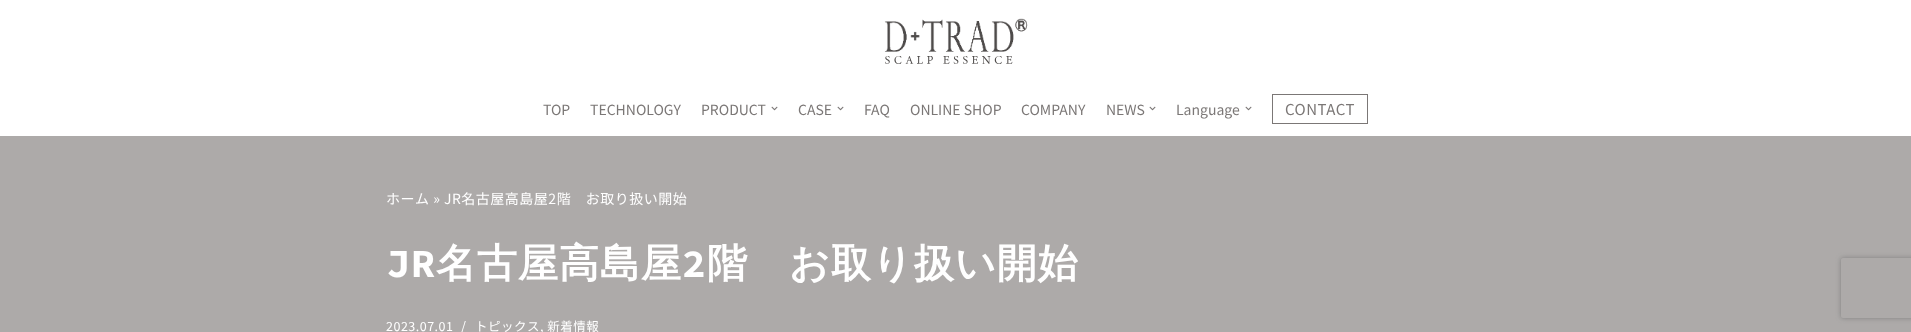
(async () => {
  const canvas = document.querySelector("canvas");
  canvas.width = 1911;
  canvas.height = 332;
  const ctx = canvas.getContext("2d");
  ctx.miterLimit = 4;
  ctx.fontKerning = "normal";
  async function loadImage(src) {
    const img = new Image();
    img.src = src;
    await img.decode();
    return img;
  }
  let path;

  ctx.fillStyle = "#ffffff";
  ctx.fillRect(0, 0, 1911, 332);
  ctx.drawImage(await loadImage("img/1.png"), 884, 18, 144, 46);
  ctx.drawImage(await loadImage("img/2.png"), 771, 106, 7, 5);
  ctx.drawImage(await loadImage("img/2.png"), 837, 106, 7, 5);
  ctx.drawImage(await loadImage("img/2.png"), 1149, 106, 7, 5);
  ctx.drawImage(await loadImage("img/2.png"), 1245, 106, 7, 5);
  ctx.strokeStyle = "#7b7776";
  ctx.strokeRect(1272.5, 94.5, 95, 29);
  ctx.fillStyle = "#adaaa9";
  ctx.fillRect(0, 136, 1911, 196);
  ctx.save();
  path = new Path2D("M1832 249H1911V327H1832ZM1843 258H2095C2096 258 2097 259 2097 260V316C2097 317 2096 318 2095 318H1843C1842 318 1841 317 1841 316V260C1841 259 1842 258 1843 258Z");
  ctx.clip(path, "evenodd");
  ctx.fillStyle = "#808080";
  ctx.filter = "blur(2.5px)";
  ctx.beginPath();
  ctx.roundRect(1841, 258, 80, 60, 2);
  ctx.fill();
  ctx.filter = "none";
  ctx.restore();
  ctx.font = "14px Noto Sans JP";
  ctx.fillStyle = "#7b7776";
  for (const [text, x, y] of [
    ["TOP", 543, 115],
    ["TECHNOLOGY", 590, 115],
    ["PRODUCT", 701, 115],
    ["CASE", 798, 115],
    ["FAQ", 864, 115],
    ["ONLINE SHOP", 910, 115],
    ["COMPANY", 1021, 115],
    ["NEWS", 1106, 115],
    ["Language", 1176, 115],
  ]) {
    ctx.fillText(text, x, y);
  }
  ctx.letterSpacing = "0.5px";
  ctx.font = "15px Noto Sans JP";
  ctx.fillText("CONTACT", 1285, 115);
  ctx.font = "14px Noto Sans JP";
  ctx.fillStyle = "#ffffff";
  ctx.fillText("ホーム » JR名古屋高島屋2階　お取り扱い開始", 386, 204);
  ctx.letterSpacing = "1px";
  ctx.font = "bold 40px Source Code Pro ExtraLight";
  ctx.fillText("JR", 386, 277);
  ctx.font = "bold 40px WenQuanYi Zen Hei";
  ctx.fillText("名古屋高島屋", 436, 277);
  ctx.font = "bold 40px Source Code Pro ExtraLight";
  ctx.fillText("2", 682, 277);
  ctx.font = "bold 40px WenQuanYi Zen Hei";
  ctx.fillText("階　お取り扱い開始", 707, 277);
  ctx.letterSpacing = "0.5px";
  ctx.font = "12.5px Noto Sans JP";
  for (const [text, x, y] of [
    ["2023.07.01", 386, 331],
    ["/", 461, 331],
    ["トピックス, 新着情報", 475, 331],
  ]) {
    ctx.fillText(text, x, y);
  }
})();
